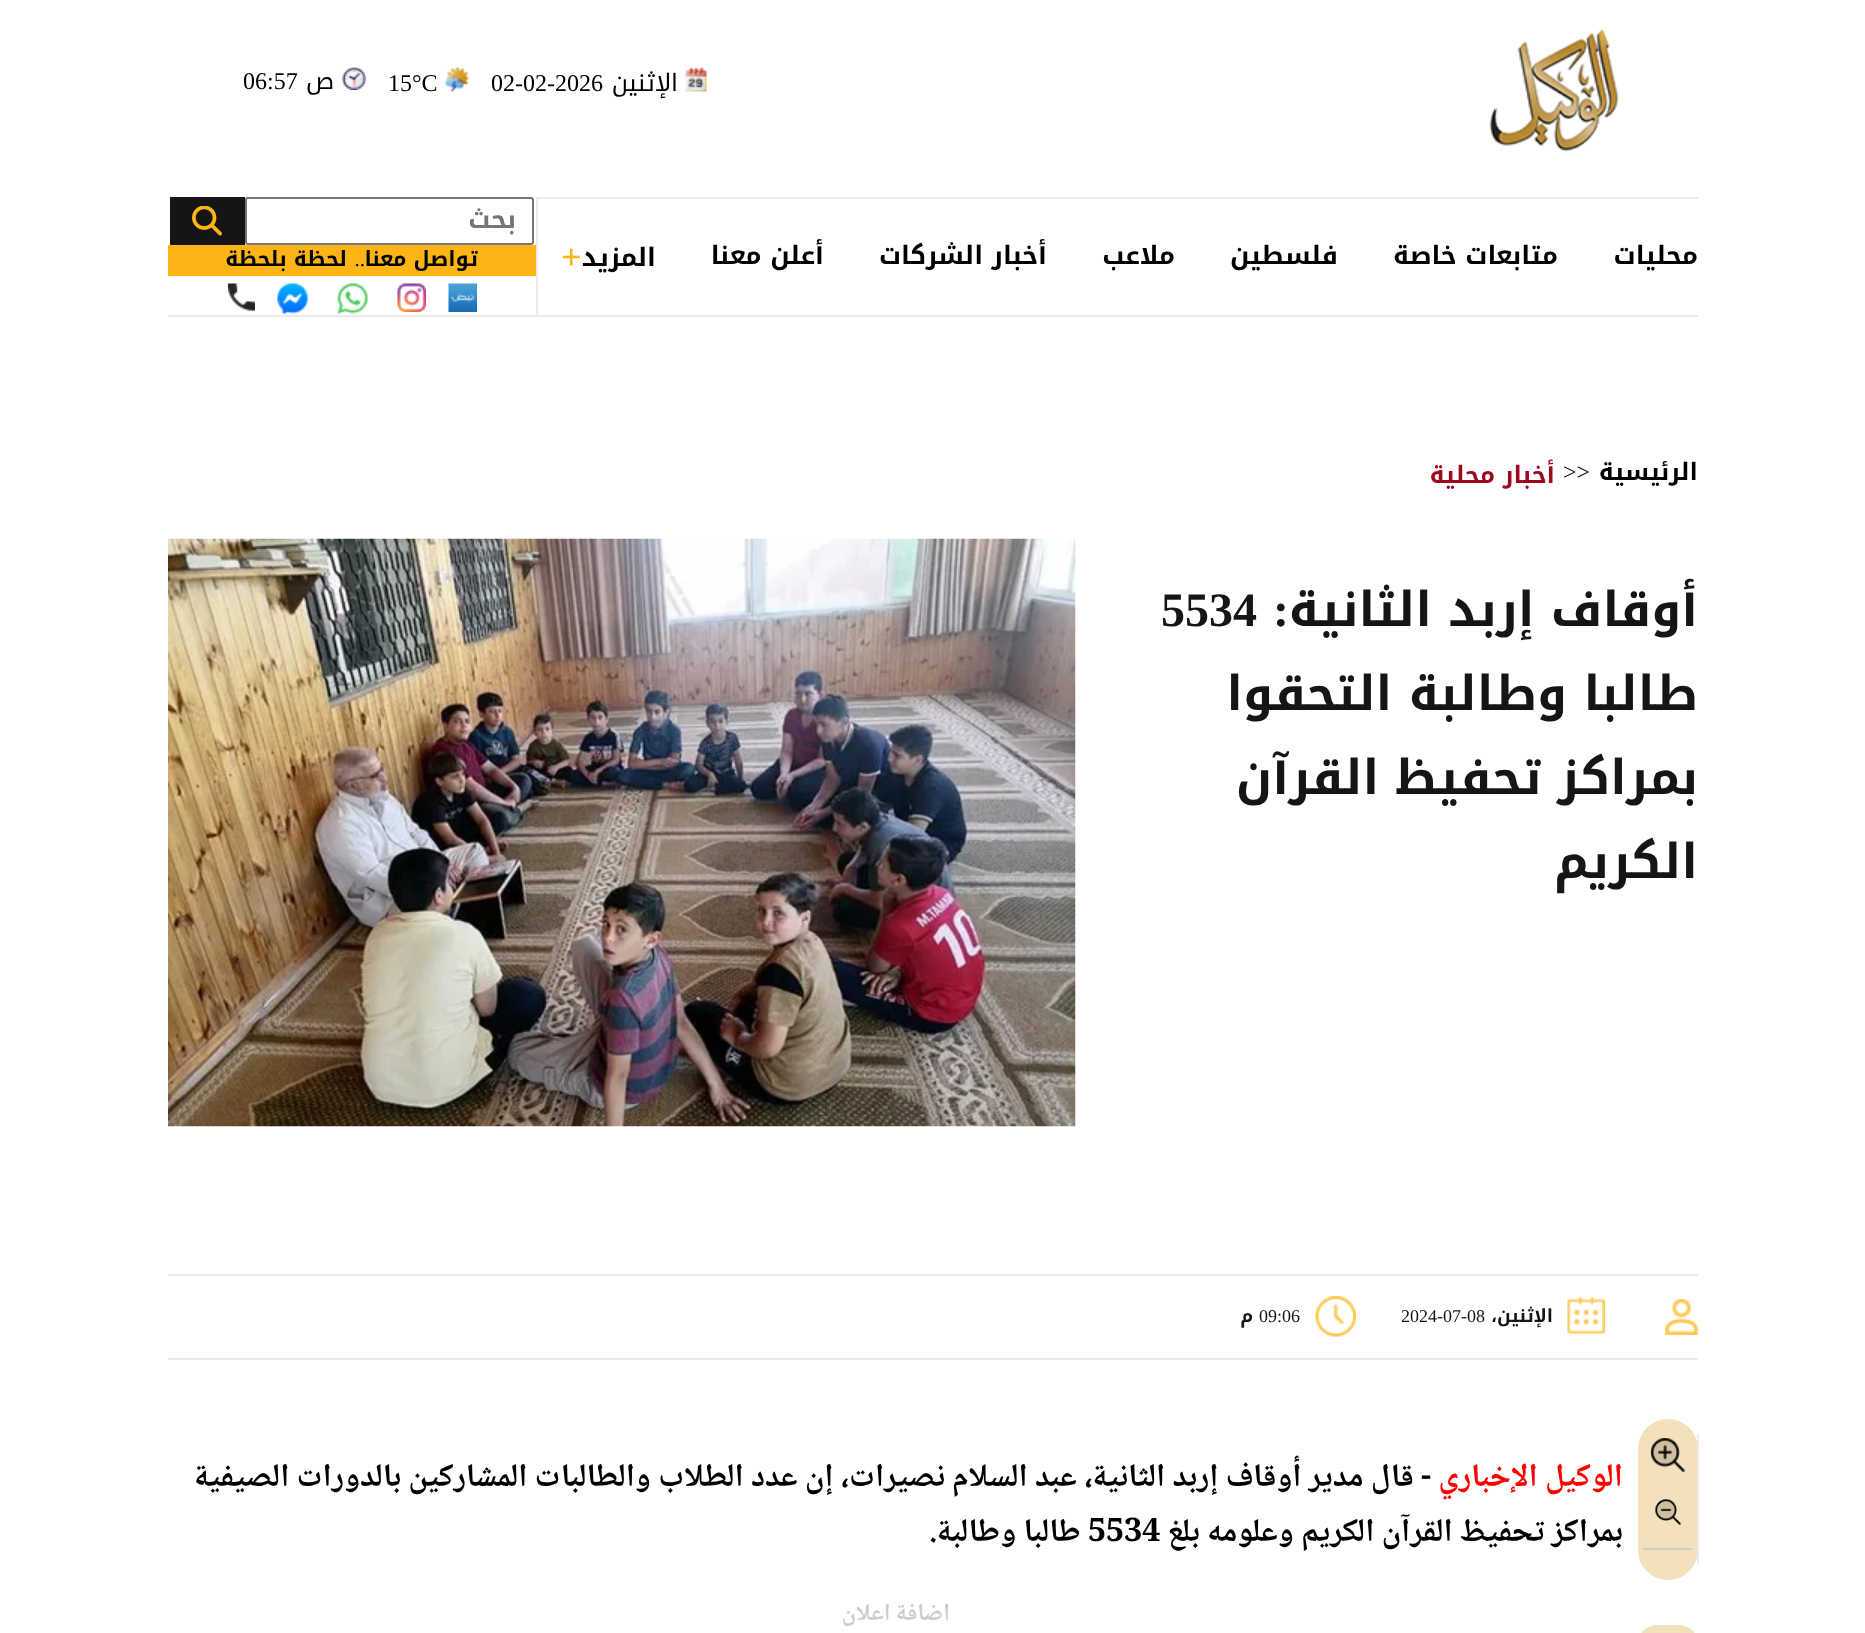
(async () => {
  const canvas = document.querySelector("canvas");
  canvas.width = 1865;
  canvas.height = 1633;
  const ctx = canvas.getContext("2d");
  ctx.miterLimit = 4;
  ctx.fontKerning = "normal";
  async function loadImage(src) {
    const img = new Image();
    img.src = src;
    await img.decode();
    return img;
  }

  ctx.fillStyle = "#ffffff";
  ctx.fillRect(0, 0, 1865, 1633);
  ctx.drawImage(await loadImage("img/1.png"), 1489, 29, 130, 123);
  ctx.drawImage(await loadImage("img/2.png"), 685, 67, 22, 25);
  ctx.drawImage(await loadImage("img/3.png"), 445, 67, 25, 25);
  ctx.drawImage(await loadImage("img/4.png"), 342, 67, 24, 23);
  for (const [x, y, w, h, color] of [
    [537, 197, 1161, 2, "#ebebeb"],
    [537, 315, 1161, 2, "#ebebeb"],
    [536, 197, 2, 120, "#ebebeb"],
    [168, 315, 369, 2, "#ebebeb"],
  ]) {
    ctx.fillStyle = color;
    ctx.fillRect(x, y, w, h);
  }
  ctx.beginPath();
  ctx.roundRect(246, 198, 287, 46, 2);
  ctx.strokeStyle = "#767676";
  ctx.lineWidth = 2;
  ctx.stroke();
  ctx.fillStyle = "#151515";
  ctx.fillRect(170, 197, 75, 48);
  ctx.drawImage(await loadImage("img/5.png"), 192, 206, 30, 30);
  ctx.fillStyle = "#fdb515";
  ctx.fillRect(168, 245, 368, 31);
  ctx.drawImage(await loadImage("img/6.png"), 448, 283, 29, 29);
  ctx.drawImage(await loadImage("img/7.png"), 397, 283, 29, 29);
  ctx.drawImage(await loadImage("img/8.png"), 337, 283, 31, 31);
  ctx.drawImage(await loadImage("img/9.png"), 277, 283, 31, 31);
  ctx.drawImage(await loadImage("img/10.png"), 228, 283, 27, 28);
  ctx.drawImage(await loadImage("img/11.png"), 168, 538, 908, 589);
  ctx.fillStyle = "#ebebeb";
  ctx.fillRect(168, 1274, 1530, 2);
  ctx.fillRect(168, 1358, 1530, 2);
  ctx.drawImage(await loadImage("img/12.png"), 1665, 1299, 33, 36);
  ctx.drawImage(await loadImage("img/13.png"), 1567, 1297, 38, 37);
  ctx.drawImage(await loadImage("img/14.png"), 1315, 1296, 41, 41);
  ctx.fillStyle = "#f2e1bb";
  ctx.beginPath();
  ctx.roundRect(1638, 1419, 60, 161, 30);
  ctx.fill();
  ctx.fillStyle = "#ebebeb";
  ctx.fillRect(1697, 1434, 2, 131);
  ctx.drawImage(await loadImage("img/15.png"), 1650, 1438, 35, 34);
  ctx.drawImage(await loadImage("img/16.png"), 1655, 1499, 26, 26);
  ctx.fillStyle = "#cccccc";
  ctx.fillRect(1643, 1548, 49, 2);
  ctx.fillStyle = "#f2e1bb";
  ctx.beginPath();
  ctx.roundRect(1638, 1625, 60, 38, 30);
  ctx.fill();
  ctx.direction = "rtl";
  ctx.font = "24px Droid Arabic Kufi";
  ctx.fillStyle = "#000000";
  ctx.fillText("الإثنين", 678, 91);
  ctx.direction = "ltr";
  ctx.font = "24px Liberation Serif";
  ctx.fillText("02-02-2026", 491, 91);
  ctx.fillText("15°C", 388, 91);
  ctx.direction = "rtl";
  ctx.font = "24px Droid Arabic Kufi";
  ctx.fillText("ص", 334, 89);
  ctx.direction = "ltr";
  ctx.font = "24px Liberation Serif";
  ctx.fillText("06:57", 243, 89);
  ctx.direction = "rtl";
  ctx.font = "bold 25.5px Droid Arabic Kufi";
  for (const [text, x, y] of [
    ["محليات", 1698, 264],
    ["متابعات خاصة", 1558, 264],
    ["فلسطين", 1338, 264],
    ["ملاعب", 1175, 264],
    ["أخبار الشركات", 1047, 264],
    ["أعلن معنا", 824, 264],
    ["المزيد", 656, 266],
  ]) {
    ctx.fillText(text, x, y);
  }
  ctx.direction = "ltr";
  ctx.font = "bold 36px Liberation Serif";
  ctx.fillStyle = "#fdb515";
  ctx.fillText("+", 561, 269);
  ctx.direction = "rtl";
  ctx.font = "bold 25.5px Droid Arabic Kufi";
  ctx.fillStyle = "#757575";
  ctx.fillText("بحث", 516, 228);
  ctx.font = "bold 21px Droid Arabic Kufi";
  ctx.fillStyle = "#000000";
  ctx.fillText("تواصل معنا", 478, 266);
  ctx.font = "21px Liberation Serif";
  ctx.fillText("..", 365, 266);
  ctx.font = "bold 21px Droid Arabic Kufi";
  ctx.fillText("لحظة بلحظة", 347, 266);
  ctx.font = "bold 24px Droid Arabic Kufi";
  ctx.fillText("الرئيسية", 1698, 480);
  ctx.direction = "ltr";
  ctx.font = "24px Liberation Serif";
  ctx.fillText(">>", 1563, 480);
  ctx.direction = "rtl";
  ctx.font = "bold 24px Droid Arabic Kufi";
  ctx.fillStyle = "#9f071c";
  ctx.fillText("أخبار محلية", 1555, 483);
  ctx.font = "bold 48px Droid Arabic Kufi";
  ctx.fillStyle = "#151515";
  ctx.fillText("أوقاف إربد الثانية", 1698, 626);
  ctx.font = "bold 48px Liberation Serif";
  ctx.fillText(":", 1289, 626);
  ctx.direction = "ltr";
  ctx.fillText("5534", 1161, 626);
  ctx.direction = "rtl";
  ctx.font = "bold 48px Droid Arabic Kufi";
  for (const [text, x, y] of [
    ["طالبا وطالبة التحقوا", 1698, 710],
    ["بمراكز تحفيظ القرآن", 1698, 794],
    ["الكريم", 1698, 878],
  ]) {
    ctx.fillText(text, x, y);
  }
  ctx.font = "bold 18px Droid Arabic Kufi";
  ctx.fillText("الإثنين،", 1553, 1322);
  ctx.direction = "ltr";
  ctx.font = "18px Liberation Serif";
  ctx.fillText("2024-07-08", 1401, 1322);
  ctx.fillText("09:06", 1259, 1322);
  ctx.direction = "rtl";
  ctx.font = "bold 18px Droid Arabic Kufi";
  ctx.fillText("م", 1253, 1322);
  ctx.font = "bold 32.4px Noto Naskh Arabic";
  ctx.fillStyle = "#ff0000";
  ctx.fillText("الوكيل الإخباري", 1623, 1486);
  ctx.fillStyle = "#000000";
  ctx.fillText("- قال مدير أوقاف إربد الثانية، عبد السلام نصيرات، إن عدد الطلاب والطالبات المشاركين بالدورات الصيفية", 1431, 1486);
  ctx.fillText("بمراكز تحفيظ القرآن الكريم وعلومه بلغ", 1623, 1541);
  ctx.direction = "ltr";
  ctx.fillText("5534", 1088, 1541);
  ctx.direction = "rtl";
  ctx.fillText("طالبا وطالبة.", 1081, 1541);
  ctx.font = "bold 24px Noto Naskh Arabic";
  ctx.fillStyle = "#cccccc";
  ctx.fillText("اضافة اعلان", 950, 1620);
})();
